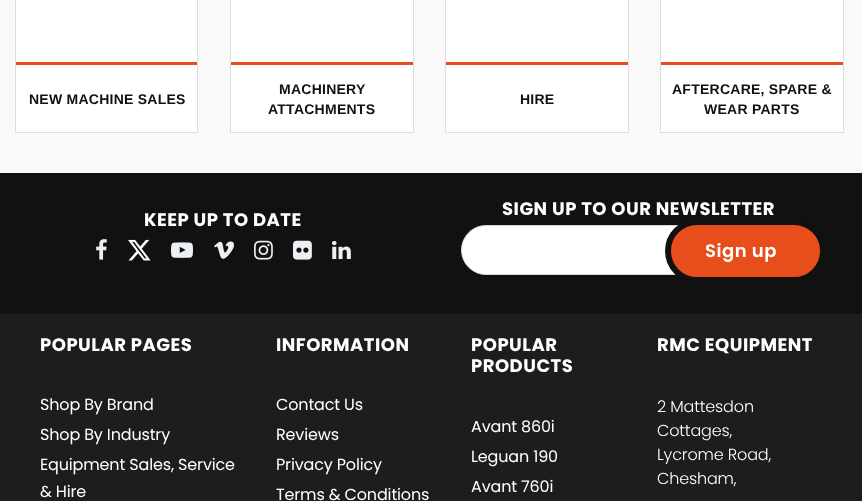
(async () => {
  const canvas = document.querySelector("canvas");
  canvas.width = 862;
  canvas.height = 501;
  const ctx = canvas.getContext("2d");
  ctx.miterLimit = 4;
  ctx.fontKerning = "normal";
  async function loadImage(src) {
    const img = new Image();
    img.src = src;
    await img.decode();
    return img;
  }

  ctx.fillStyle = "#f9f9f9";
  ctx.fillRect(0, 0, 862, 501);
  ctx.fillStyle = "#ffffff";
  ctx.beginPath();
  ctx.rect(15.5, -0.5, 182, 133);
  ctx.fill();
  ctx.strokeStyle = "#dddddd";
  ctx.stroke();
  ctx.fillStyle = "#e84e1b";
  ctx.fillRect(16, 62, 181, 3);
  ctx.fillStyle = "#ffffff";
  ctx.beginPath();
  ctx.rect(230.5, -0.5, 183, 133);
  ctx.fill();
  ctx.stroke();
  ctx.fillStyle = "#e84e1b";
  ctx.fillRect(231, 62, 182, 3);
  ctx.fillStyle = "#ffffff";
  ctx.beginPath();
  ctx.rect(445.5, -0.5, 183, 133);
  ctx.fill();
  ctx.stroke();
  ctx.fillStyle = "#e84e1b";
  ctx.fillRect(446, 62, 182, 3);
  ctx.fillStyle = "#ffffff";
  ctx.beginPath();
  ctx.rect(660.5, -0.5, 183, 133);
  ctx.fill();
  ctx.stroke();
  for (const [x, y, w, h, color] of [
    [661, 62, 182, 3, "#e84e1b"],
    [0, 314, 862, 187, "#1d1d1d"],
    [0, 173, 862, 141, "#111111"],
  ]) {
    ctx.fillStyle = color;
    ctx.fillRect(x, y, w, h);
  }
  ctx.drawImage(await loadImage("img/1.png"), 96, 239, 11, 21);
  ctx.drawImage(await loadImage("img/2.png"), 128, 239, 23, 22);
  ctx.drawImage(await loadImage("img/3.png"), 171, 242, 22, 16);
  ctx.drawImage(await loadImage("img/4.png"), 214, 241, 20, 18);
  ctx.drawImage(await loadImage("img/5.png"), 254, 240, 19, 20);
  ctx.drawImage(await loadImage("img/6.png"), 293, 240, 19, 20);
  ctx.drawImage(await loadImage("img/7.png"), 332, 241, 19, 18);
  ctx.fillStyle = "#ffffff";
  ctx.beginPath();
  ctx.roundRect(461.5, 225.5, 254, 49, 24.5);
  ctx.fill();
  ctx.strokeStyle = "#dcd7ca";
  ctx.stroke();
  ctx.fillStyle = "#e84e1b";
  ctx.beginPath();
  ctx.roundRect(668, 222, 155, 58, 29);
  ctx.fill();
  ctx.strokeStyle = "#111111";
  ctx.lineWidth = 6;
  ctx.stroke();
  ctx.letterSpacing = "0.25px";
  ctx.font = "bold 14px Liberation Sans";
  ctx.fillStyle = "#111111";
  for (const [text, x, y] of [
    ["NEW MACHINE SALES", 29, 104],
    ["MACHINERY", 279, 94],
    ["ATTACHMENTS", 268, 114],
    ["HIRE", 520, 104],
    ["AFTERCARE, SPARE &", 672, 94],
    ["WEAR PARTS", 704, 114],
  ]) {
    ctx.fillText(text, x, y);
  }
  ctx.letterSpacing = "0.5px";
  ctx.font = "bold 18px Poppins";
  ctx.fillStyle = "#ffffff";
  ctx.fillText("KEEP UP TO DATE", 144, 226);
  ctx.fillText("SIGN UP TO OUR NEWSLETTER", 502, 215);
  ctx.font = "600 18px Poppins";
  ctx.fillText("Sign up", 705, 257);
  ctx.font = "bold 18px Poppins";
  ctx.fillText("POPULAR PAGES", 40, 351);
  ctx.letterSpacing = "-0.15px";
  ctx.font = "16px Poppins";
  for (const [text, x, y] of [
    ["Shop By Brand", 40, 410],
    ["Shop By Industry", 40, 440],
    ["Equipment Sales, Service", 40, 470],
    ["& Hire", 40, 497],
  ]) {
    ctx.fillText(text, x, y);
  }
  ctx.letterSpacing = "0.5px";
  ctx.font = "bold 18px Poppins";
  ctx.fillText("INFORMATION", 276, 351);
  ctx.letterSpacing = "-0.15px";
  ctx.font = "16px Poppins";
  for (const [text, x, y] of [
    ["Contact Us", 276, 410],
    ["Reviews", 276, 440],
    ["Privacy Policy", 276, 470],
    ["Terms & Conditions", 276, 500],
  ]) {
    ctx.fillText(text, x, y);
  }
  ctx.letterSpacing = "0.5px";
  ctx.font = "bold 18px Poppins";
  ctx.fillText("POPULAR", 471, 351);
  ctx.fillText("PRODUCTS", 471, 372);
  ctx.letterSpacing = "-0.15px";
  ctx.font = "16px Poppins";
  for (const [text, x, y] of [
    ["Avant 860i", 471, 432],
    ["Leguan 190", 471, 462],
    ["Avant 760i", 471, 492],
  ]) {
    ctx.fillText(text, x, y);
  }
  ctx.letterSpacing = "0.5px";
  ctx.font = "bold 18px Poppins";
  ctx.fillText("RMC EQUIPMENT", 657, 351);
  ctx.letterSpacing = "-0.15px";
  ctx.font = "300 16px Poppins";
  for (const [text, x, y] of [
    ["2 Mattesdon", 657, 412],
    ["Cottages,", 657, 436],
    ["Lycrome Road,", 657, 460],
    ["Chesham,", 657, 484],
  ]) {
    ctx.fillText(text, x, y);
  }
})();
